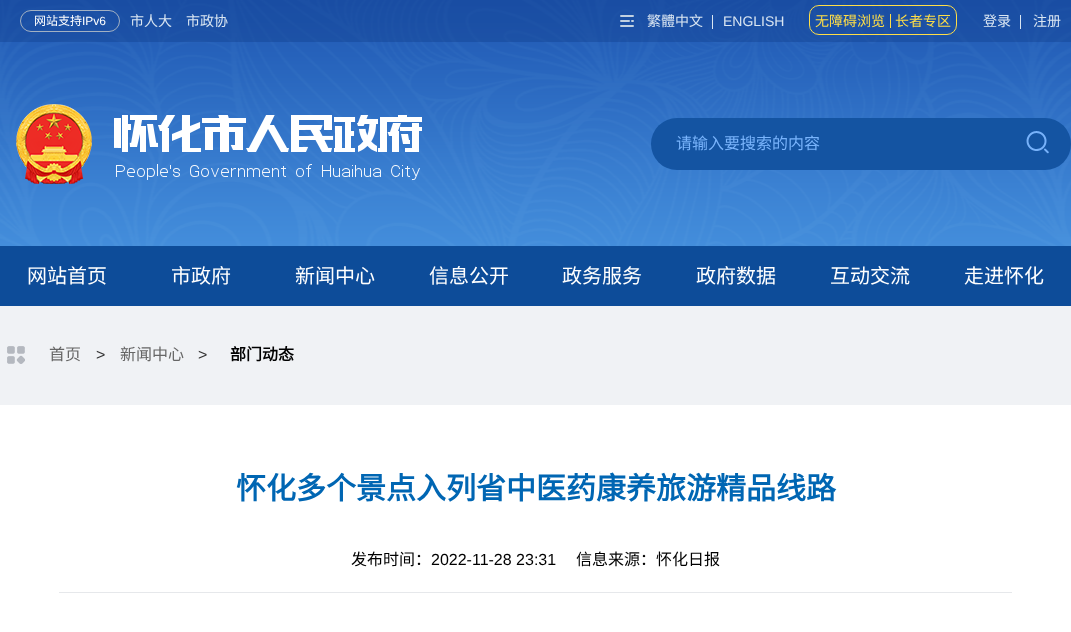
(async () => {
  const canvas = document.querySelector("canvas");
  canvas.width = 1071;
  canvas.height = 632;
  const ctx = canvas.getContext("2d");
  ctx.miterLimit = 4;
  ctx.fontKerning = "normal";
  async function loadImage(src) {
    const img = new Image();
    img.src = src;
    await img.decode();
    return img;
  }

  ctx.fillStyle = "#f0f2f5";
  ctx.fillRect(0, 0, 1071, 632);
  ctx.drawImage(await loadImage("img/1.png"), 0, 0, 1071, 246);
  ctx.fillStyle = "rgba(18, 63, 139, 0.4)";
  ctx.fillRect(0, 0, 1071, 42);
  ctx.beginPath();
  ctx.roundRect(20.5, 10.5, 99, 21, 10.5);
  ctx.strokeStyle = "#a2b1c3";
  ctx.stroke();
  ctx.drawImage(await loadImage("img/2.png"), 620, 15, 14, 12);
  ctx.fillStyle = "#dae6f2";
  ctx.fillRect(712, 15, 1, 14);
  ctx.beginPath();
  ctx.roundRect(809.5, 5.5, 147, 29, 9.5);
  ctx.strokeStyle = "#ffde47";
  ctx.stroke();
  ctx.fillStyle = "#ffde47";
  ctx.fillRect(890, 14, 1, 14);
  ctx.fillStyle = "#dae6f2";
  ctx.fillRect(1020, 15, 1, 14);
  ctx.drawImage(await loadImage("img/3.png"), 16, 104, 406, 80);
  ctx.fillStyle = "#1454a2";
  ctx.beginPath();
  ctx.roundRect(651, 118, 420, 52, 26);
  ctx.fill();
  ctx.drawImage(await loadImage("img/4.png"), 1026, 131, 23, 23);
  ctx.fillStyle = "#0d4c99";
  ctx.fillRect(0, 246, 1071, 60);
  ctx.drawImage(await loadImage("img/5.png"), 7, 346, 18, 18);
  ctx.fillStyle = "#ffffff";
  ctx.fillRect(0, 405, 1071, 227);
  ctx.fillStyle = "#e6e8eb";
  ctx.fillRect(59, 592, 953, 1);
  ctx.font = "12px Noto Sans CJK SC";
  ctx.fillStyle = "#ffffff";
  ctx.fillText("网站支持", 34, 25);
  ctx.font = "12px Liberation Sans";
  ctx.fillText("IPv6", 82, 25);
  ctx.font = "14px Noto Sans CJK SC";
  ctx.fillStyle = "#dae6f2";
  for (const [text, x, y] of [
    ["市人大", 130, 26],
    ["市政协", 186, 26],
    ["繁體中文", 647, 26],
  ]) {
    ctx.fillText(text, x, y);
  }
  ctx.font = "14px Liberation Sans";
  ctx.fillText("ENGLISH", 723, 26);
  ctx.font = "14px Noto Sans CJK SC";
  ctx.fillStyle = "#ffde47";
  ctx.fillText("无障碍浏览", 815, 26);
  ctx.fillText("长者专区", 895, 26);
  ctx.fillStyle = "#dae6f2";
  ctx.fillText("登录", 983, 26);
  ctx.fillText("注册", 1033, 26);
  ctx.font = "16px Noto Sans CJK SC";
  ctx.fillStyle = "#79b4fc";
  ctx.fillText("请输入要搜索的内容", 676, 149);
  ctx.font = "20px Noto Sans CJK SC";
  ctx.fillStyle = "#ffffff";
  for (const [text, x, y] of [
    ["网站首页", 27, 283],
    ["市政府", 171, 283],
    ["新闻中心", 295, 283],
    ["信息公开", 429, 283],
    ["政务服务", 562, 283],
    ["政府数据", 696, 283],
    ["互动交流", 830, 283],
    ["走进怀化", 964, 283],
  ]) {
    ctx.fillText(text, x, y);
  }
  ctx.font = "16px Noto Sans CJK SC";
  ctx.fillStyle = "#666666";
  ctx.fillText("首页", 49, 360);
  ctx.font = "16px Liberation Sans";
  ctx.fillStyle = "#333333";
  ctx.fillText(">", 96, 360);
  ctx.font = "16px Noto Sans CJK SC";
  ctx.fillStyle = "#666666";
  ctx.fillText("新闻中心", 120, 360);
  ctx.font = "16px Liberation Sans";
  ctx.fillStyle = "#333333";
  ctx.fillText(">", 198, 360);
  ctx.font = "bold 16px Noto Sans CJK SC";
  ctx.fillStyle = "#000000";
  ctx.fillText("部门动态", 230, 360);
  ctx.font = "bold 30px Noto Sans CJK SC";
  ctx.fillStyle = "#0066b3";
  ctx.fillText("怀化多个景点入列省中医药康养旅游精品线路", 236, 499);
  ctx.font = "16px Noto Sans CJK SC";
  ctx.fillStyle = "#000000";
  ctx.fillText("发布时间：", 351, 565);
  ctx.font = "16px Liberation Sans";
  ctx.fillText("2022-11-28 23:31", 431, 565);
  ctx.font = "16px Noto Sans CJK SC";
  ctx.fillText("信息来源：怀化日报", 576, 565);
})();
